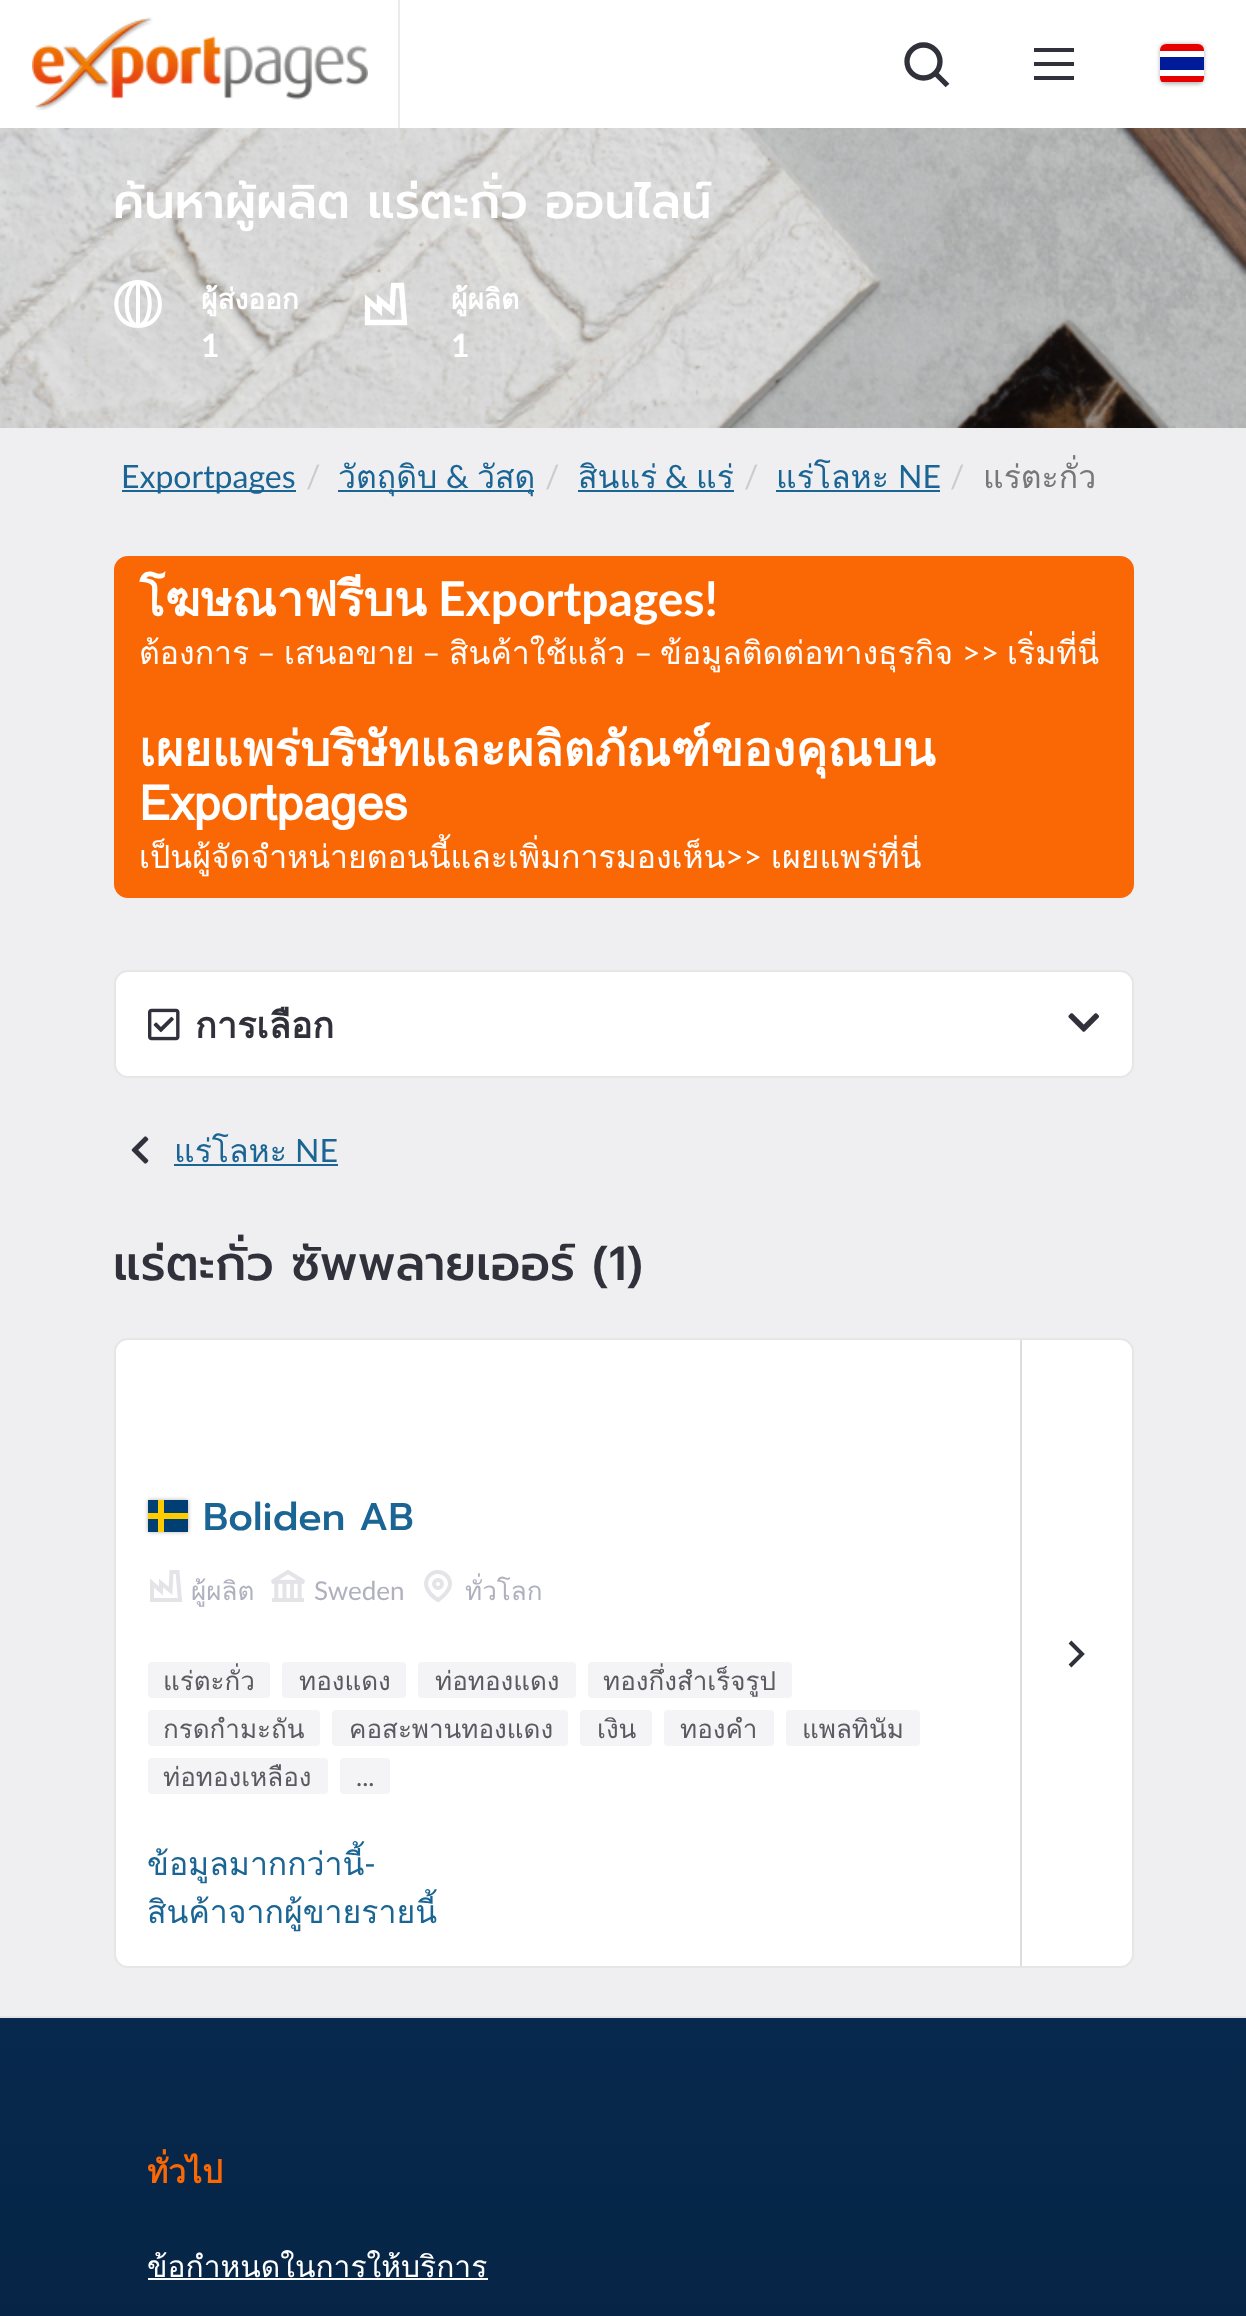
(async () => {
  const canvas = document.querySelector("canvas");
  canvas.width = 1246;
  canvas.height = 2316;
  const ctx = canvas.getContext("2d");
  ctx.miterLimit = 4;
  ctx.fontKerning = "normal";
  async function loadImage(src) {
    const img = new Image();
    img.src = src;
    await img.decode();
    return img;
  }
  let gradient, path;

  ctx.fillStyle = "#ffffff";
  ctx.fillRect(0, 0, 1246, 2316);
  ctx.drawImage(await loadImage("img/1.png"), 32, 17, 336, 93);
  ctx.fillStyle = "#ebebef";
  ctx.fillRect(398, 0, 2, 128);
  ctx.beginPath();
  ctx.arc(923.5, 61.5, 16.5, 0, Math.PI * 2);
  ctx.strokeStyle = "#31313b";
  ctx.lineWidth = 5.3;
  ctx.stroke();
  path = new Path2D("M935.5 73.5L947.5 85.5");
  ctx.stroke(path);
  for (const [x, y, w, h, color] of [
    [1034, 76, 40, 4, "#31313b"],
    [1034, 62, 40, 4, "#31313b"],
    [1034, 48, 40, 4, "#31313b"],
  ]) {
    ctx.fillStyle = color;
    ctx.fillRect(x, y, w, h);
  }
  ctx.fillStyle = "rgba(0, 0, 0, 0.3)";
  ctx.filter = "blur(2px)";
  ctx.beginPath();
  ctx.roundRect(1160, 44, 44, 40, 6);
  ctx.fill();
  ctx.filter = "none";
  ctx.save();
  ctx.beginPath();
  ctx.roundRect(1160, 44, 44, 40, 6);
  ctx.clip();
  ctx.fillStyle = "#ffffff";
  ctx.beginPath();
  ctx.roundRect(1160, 44, 44, 38, [6, 6, 0, 0]);
  ctx.fill();
  ctx.restore();
  ctx.fillStyle = "#001b9a";
  ctx.fillRect(1160, 57, 44, 13);
  ctx.fillStyle = "#e70000";
  ctx.beginPath();
  ctx.roundRect(1160, 44, 44, 7, [6, 6, 0, 0]);
  ctx.fill();
  ctx.save();
  ctx.beginPath();
  ctx.roundRect(1160, 44, 44, 40, 6);
  ctx.clip();
  ctx.fillRect(1160, 76, 44, 6);
  ctx.restore();
  ctx.drawImage(await loadImage("img/2.png"), 0, 128, 1246, 300);
  path = new Path2D("M138 326C167.5 326 167 282 138 282M138 326C109 326 109 282 138 282M138 326V282M138 326C123 323 123 285 138 282M138.5 282C153.5 285 153.5 323 138.5 326");
  ctx.strokeStyle = "#ffffff";
  ctx.lineWidth = 4;
  ctx.stroke(path);
  path = new Path2D("M404.5 322.5L401.5 285.5H393.5L392 310.5L379.5 300V310.5L367.5 300V322.5Z");
  ctx.lineWidth = 5.3;
  ctx.stroke(path);
  for (const [x, y, w, h, color] of [
    [0, 428, 1246, 1588, "#efeff1"],
    [122, 490, 174, 2, "#1b6595"],
    [338, 490, 196, 2, "#1b6595"],
    [578, 490, 156, 2, "#1b6595"],
    [776, 490, 164, 2, "#1b6595"],
  ]) {
    ctx.fillStyle = color;
    ctx.fillRect(x, y, w, h);
  }
  ctx.fillStyle = "#fa6705";
  ctx.beginPath();
  ctx.roundRect(115, 557, 1018, 340, 13);
  ctx.fill();
  ctx.strokeStyle = "#fa6705";
  ctx.lineWidth = 2;
  ctx.stroke();
  ctx.fillStyle = "#ffffff";
  ctx.beginPath();
  ctx.roundRect(114, 970, 1020, 108, 14);
  ctx.fill();
  ctx.beginPath();
  ctx.roundRect(115, 971, 1018, 106, 13);
  ctx.strokeStyle = "rgba(49, 49, 59, 0.12)";
  ctx.stroke();
  ctx.drawImage(await loadImage("img/3.png"), 148, 1008, 32, 33);
  ctx.drawImage(await loadImage("img/4.png"), 1068, 1013, 32, 19);
  ctx.drawImage(await loadImage("img/5.png"), 131, 1136, 18, 28);
  ctx.fillStyle = "#1b6595";
  ctx.fillRect(174, 1164, 164, 2);
  ctx.fillStyle = "#ffffff";
  ctx.beginPath();
  ctx.roundRect(114, 1338, 1020, 630, 14);
  ctx.fill();
  ctx.beginPath();
  ctx.roundRect(115, 1339, 1018, 628, 13);
  ctx.stroke();
  ctx.fillStyle = "rgba(0, 0, 0, 0.3)";
  ctx.filter = "blur(2px)";
  ctx.beginPath();
  ctx.rect(148, 1500, 40, 32);
  ctx.fill();
  ctx.filter = "none";
  for (const [x, y, w, h, color] of [
    [148, 1500, 10, 13, "#004073"],
    [148, 1519, 10, 13, "#003f73"],
    [148, 1513, 10, 6, "#ffcc00"],
    [158, 1500, 6, 32, "#ffcc00"],
    [164, 1513, 24, 6, "#ffcc00"],
    [164, 1519, 24, 13, "#003f73"],
    [164, 1500, 24, 13, "#003f73"],
    [1020, 1340, 2, 626, "#dddddd"],
  ]) {
    ctx.fillStyle = color;
    ctx.fillRect(x, y, w, h);
  }
  path = new Path2D("M1070 1666L1082 1654L1070 1642");
  ctx.strokeStyle = "#31313b";
  ctx.lineWidth = 4;
  ctx.stroke(path);
  ctx.drawImage(await loadImage("img/6.png"), 271, 1570, 34, 32);
  path = new Path2D("M450 1583.5C450 1592.5 438 1600 438 1600C412.5 1584 434 1563.5 446.5 1575.5C448.5 1577.5 450 1580.5 450 1583.5Z");
  ctx.strokeStyle = "#e3e3e8";
  ctx.stroke(path);
  ctx.beginPath();
  ctx.arc(438, 1584, 4, 0, Math.PI * 2);
  ctx.stroke();
  ctx.fillStyle = "#f4f4f6";
  ctx.beginPath();
  ctx.roundRect(148, 1662, 122, 36, 4);
  ctx.fill();
  ctx.beginPath();
  ctx.roundRect(282, 1662, 124, 36, 4);
  ctx.fill();
  ctx.beginPath();
  ctx.roundRect(418, 1662, 158, 36, 4);
  ctx.fill();
  ctx.beginPath();
  ctx.roundRect(588, 1662, 204, 36, 4);
  ctx.fill();
  ctx.beginPath();
  ctx.roundRect(148, 1710, 172, 36, 4);
  ctx.fill();
  ctx.beginPath();
  ctx.roundRect(332, 1710, 236, 36, 4);
  ctx.fill();
  ctx.beginPath();
  ctx.roundRect(580, 1710, 72, 36, 4);
  ctx.fill();
  ctx.beginPath();
  ctx.roundRect(664, 1710, 110, 36, 4);
  ctx.fill();
  ctx.beginPath();
  ctx.roundRect(786, 1710, 134, 36, 4);
  ctx.fill();
  ctx.beginPath();
  ctx.roundRect(148, 1758, 180, 36, 4);
  ctx.fill();
  ctx.beginPath();
  ctx.roundRect(340, 1758, 50, 36, 4);
  ctx.fill();
  gradient = ctx.createLinearGradient(623, 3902, 623, 2018);
  gradient.addColorStop(0, "#010f22");
  gradient.addColorStop(1, "#07294d");
  ctx.fillStyle = gradient;
  ctx.fillRect(0, 2018, 1246, 298);
  ctx.fillStyle = "#e3e3e8";
  ctx.fillRect(0, 2016, 1246, 2);
  ctx.fillStyle = "#ffffff";
  ctx.fillRect(148, 2278, 340, 2);
  ctx.font = "500 48px Prompt";
  ctx.fillText("ค้นหาผู้ผลิต แร่ตะกั่ว ออนไลน์", 113, 218);
  ctx.font = "bold 28px Loma";
  ctx.fillText("ผู้ส่งออก", 201, 309);
  ctx.font = "bold 32px Lato";
  ctx.fillText("1", 201, 357);
  ctx.font = "bold 28px Loma";
  ctx.fillText("ผู้ผลิต", 451, 309);
  ctx.font = "bold 32px Lato";
  ctx.fillText("1", 451, 357);
  ctx.font = "32px Lato";
  ctx.fillStyle = "#1b6595";
  ctx.fillText("Exportpages", 121, 488);
  ctx.fillStyle = "#cccccc";
  ctx.fillText("/", 306, 488);
  ctx.font = "32px Loma";
  ctx.fillStyle = "#1b6595";
  ctx.fillText("วัตถุดิบ", 338, 488);
  ctx.font = "32px Lato";
  ctx.fillText("&", 446, 488);
  ctx.font = "32px Loma";
  ctx.fillText("วัสดุ", 477, 488);
  ctx.font = "32px Lato";
  ctx.fillStyle = "#cccccc";
  ctx.fillText("/", 545, 488);
  ctx.font = "32px Loma";
  ctx.fillStyle = "#1b6595";
  ctx.fillText("สินแร่", 578, 488);
  ctx.font = "32px Lato";
  ctx.fillText("&", 665, 488);
  ctx.font = "32px Loma";
  ctx.fillText("แร่", 696, 488);
  ctx.font = "32px Lato";
  ctx.fillStyle = "#cccccc";
  ctx.fillText("/", 744, 488);
  ctx.font = "32px Loma";
  ctx.fillStyle = "#1b6595";
  ctx.fillText("แร่โลหะ", 776, 488);
  ctx.font = "32px Lato";
  ctx.fillText("NE", 898, 488);
  ctx.fillStyle = "#cccccc";
  ctx.fillText("/", 950, 488);
  ctx.font = "32px Loma";
  ctx.fillStyle = "#777777";
  ctx.fillText("แร่ตะกั่ว", 983, 488);
  ctx.font = "bold 48px Loma";
  ctx.fillStyle = "#ffffff";
  ctx.fillText("โฆษณาฟรีบน", 139, 616);
  ctx.font = "bold 48px Lato";
  ctx.fillText("Exportpages!", 438, 616);
  ctx.font = "32px Loma";
  ctx.fillText("ต้องการ", 139, 664);
  ctx.font = "32px Lato";
  ctx.fillText("–", 257, 664);
  ctx.font = "32px Loma";
  ctx.fillText("เสนอขาย", 284, 664);
  ctx.font = "32px Lato";
  ctx.fillText("–", 422, 664);
  ctx.font = "32px Loma";
  ctx.fillText("สินค้าใช้แล้ว", 449, 664);
  ctx.font = "32px Lato";
  ctx.fillText("–", 634, 664);
  ctx.font = "32px Loma";
  ctx.fillText("ข้อมูลติดต่อทางธุรกิจ", 660, 664);
  ctx.font = "32px Lato";
  ctx.fillText(">>", 962, 664);
  ctx.font = "32px Loma";
  ctx.fillText("เริ่มที่นี่", 1007, 664);
  ctx.font = "bold 48px Loma";
  ctx.fillText("เผยแพร่บริษัทและผลิตภัณฑ์ของคุณบน", 139, 766);
  ctx.fillText("Exportpages", 139, 820);
  ctx.font = "32px Loma";
  ctx.fillText("เป็นผู้จัดจำหน่ายตอนนี้และเพิ่มการมองเห็น", 139, 868);
  ctx.font = "32px Lato";
  ctx.fillText(">>", 725, 868);
  ctx.font = "32px Loma";
  ctx.fillText("เผยแพร่ที่นี่", 771, 868);
  ctx.font = "bold 36px Loma";
  ctx.fillStyle = "#31313b";
  ctx.fillText("การเลือก", 195, 1038);
  ctx.font = "32px Loma";
  ctx.fillStyle = "#1b6595";
  ctx.fillText("แร่โลหะ", 174, 1162);
  ctx.font = "32px Lato";
  ctx.fillText("NE", 295, 1162);
  ctx.font = "500 48px Prompt";
  ctx.fillStyle = "#31313b";
  ctx.fillText("แร่ตะกั่ว ซัพพลายเออร์ (1)", 113, 1280);
  ctx.font = "500 38.5px Prompt";
  ctx.fillStyle = "#1b6595";
  ctx.fillText("Boliden AB", 203, 1530);
  ctx.font = "26px Loma";
  ctx.fillStyle = "#b0b0be";
  ctx.fillText("ผู้ผลิต", 191, 1600);
  path = new Path2D("M180 1600L177.5 1572H171.5L170.5 1591L161 1583V1591L152 1583V1600Z");
  ctx.stroke(path);
  ctx.font = "26px Lato";
  ctx.fillText("Sweden", 314, 1600);
  ctx.font = "26px Loma";
  ctx.fillText("ทั่วโลก", 465, 1600);
  ctx.fillStyle = "#5a5a62";
  for (const [text, x, y] of [
    ["แร่ตะกั่ว", 163, 1690],
    ["ทองแดง", 299, 1690],
    ["ท่อทองแดง", 435, 1690],
    ["ทองกึ่งสำเร็จรูป", 603, 1690],
    ["กรดกำมะถัน", 163, 1738],
    ["คอสะพานทองแดง", 349, 1738],
    ["เงิน", 597, 1738],
    ["ทองคำ", 680, 1738],
    ["แพลทินัม", 802, 1738],
    ["ท่อทองเหลือง", 163, 1786],
  ]) {
    ctx.fillText(text, x, y);
  }
  ctx.font = "26px Lato";
  ctx.fillText("...", 356, 1786);
  ctx.font = "32px Loma";
  ctx.fillStyle = "#1b6595";
  ctx.fillText("ข้อมูลมากกว่านี้", 147, 1875);
  ctx.font = "32px Lato";
  ctx.fillText("-", 364, 1875);
  ctx.font = "32px Loma";
  ctx.fillText("สินค้าจากผู้ขายรายนี้", 147, 1923);
  ctx.font = "bold 32px Loma";
  ctx.fillStyle = "#fa6705";
  ctx.fillText("ทั่วไป", 147, 2183);
  ctx.font = "30px Loma";
  ctx.fillStyle = "#ffffff";
  ctx.fillText("ข้อกำหนดในการให้บริการ", 147, 2277);
})();
